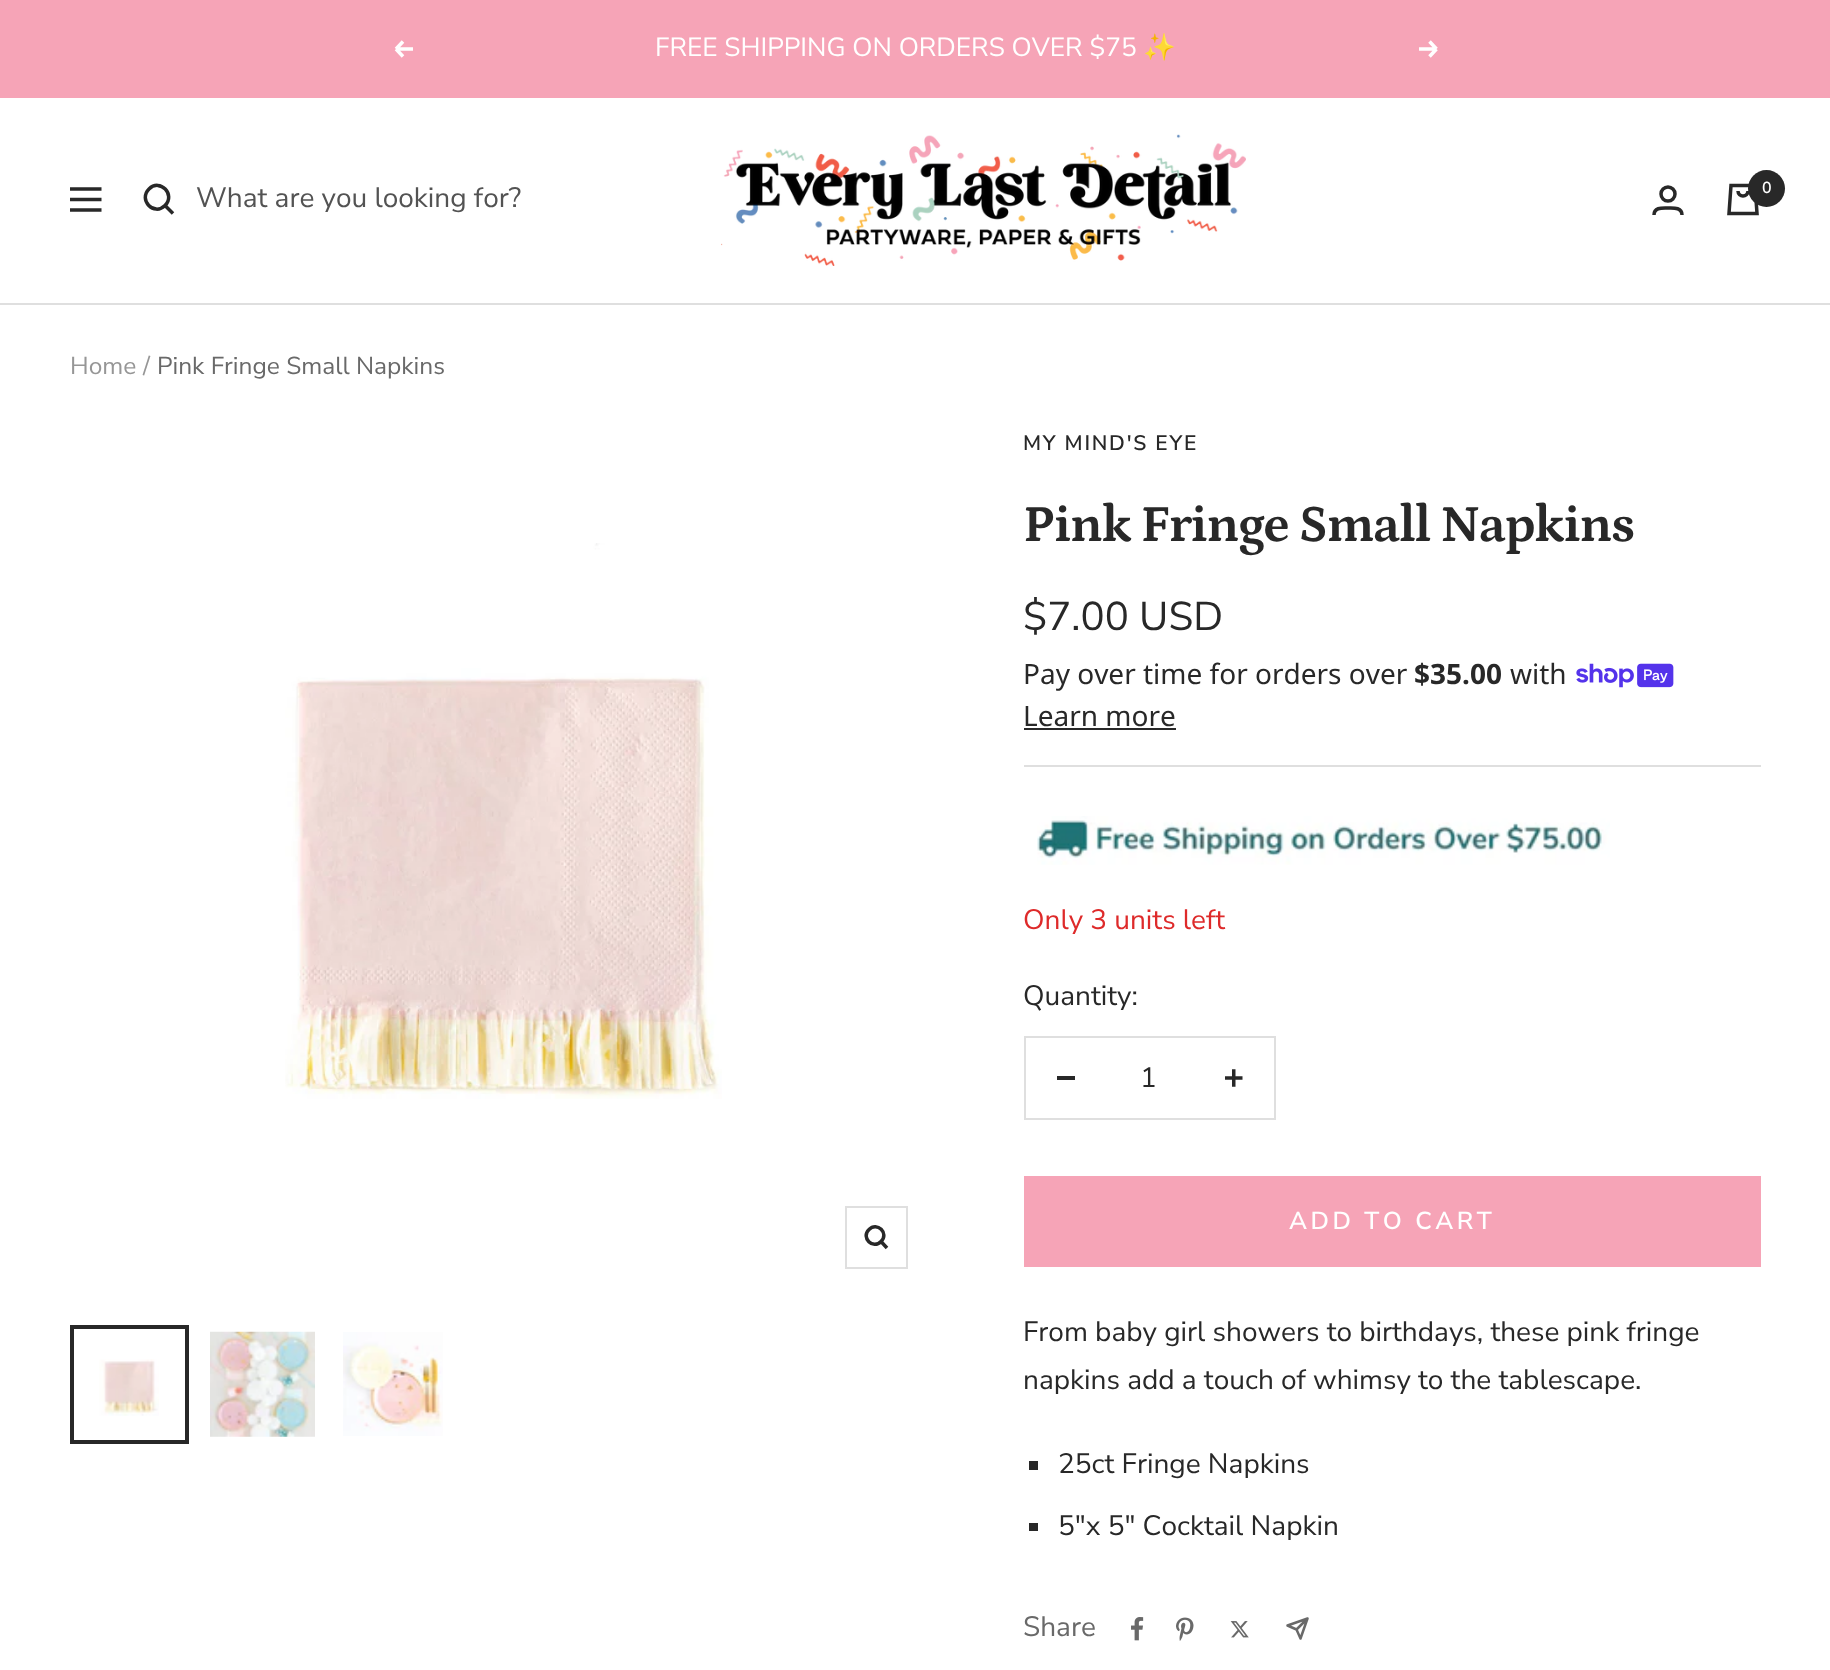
(async () => {
  const canvas = document.querySelector("canvas");
  canvas.width = 1830;
  canvas.height = 1670;
  const ctx = canvas.getContext("2d");
  ctx.miterLimit = 4;
  ctx.fontKerning = "none";
  async function loadImage(src) {
    const img = new Image();
    img.src = src;
    await img.decode();
    return img;
  }
  let path;

  ctx.fillStyle = "#ffffff";
  ctx.fillRect(0, 0, 1830, 1670);
  ctx.fillStyle = "#f6a4b7";
  ctx.fillRect(0, 0, 1830, 98);
  path = new Path2D("M413 49H396M396 49L403 56.5M396 49L403 41.5");
  ctx.strokeStyle = "#ffffff";
  ctx.lineWidth = 3.5;
  ctx.stroke(path);
  path = new Path2D("M1419 49H1436.5M1436.5 49L1429.5 56.5M1436.5 49L1429.5 41.5");
  ctx.stroke(path);
  ctx.fillStyle = "#dfdfdf";
  path = new Path2D("M0 303V305H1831V100H1830V303Z");
  ctx.fill(path);
  path = new Path2D("M70 189H101.5M70 210H101.5ZM70 199.5H101.5Z");
  ctx.strokeStyle = "#282828";
  ctx.stroke(path);
  path = new Path2D("M165 205.5C176 194.5 160 178 149 189C138 200 154 216.5 165 205.5ZM165 205.5L173 213.5");
  ctx.stroke(path);
  ctx.drawImage(await loadImage("img/1.png"), 721, 134, 525, 132);
  ctx.beginPath();
  ctx.arc(1668, 194, 7, 0, Math.PI * 2);
  ctx.stroke();
  path = new Path2D("M1654 215C1654 207 1662.5 208 1668 208C1673 208 1682 207 1682 215");
  ctx.stroke(path);
  path = new Path2D("M1731 185.5H1755L1757 213.5H1729ZM1738 191C1738 197.5 1748 197.5 1748 191");
  ctx.stroke(path);
  ctx.fillStyle = "#282828";
  ctx.beginPath();
  ctx.arc(1766.5, 188.5, 18.5, 0, Math.PI * 2);
  ctx.fill();
  ctx.drawImage(await loadImage("img/2.png"), 285, 543, 437, 556);
  ctx.strokeStyle = "#dfdfdf";
  ctx.lineWidth = 2;
  ctx.strokeRect(846, 1207, 61, 61);
  path = new Path2D("M881 1241.5C889.5 1233.5 877 1221 869 1229.5C860.5 1237.5 873 1250 881 1241.5ZM881 1241.5L887 1248");
  ctx.strokeStyle = "#282828";
  ctx.lineWidth = 3.5;
  ctx.stroke(path);
  ctx.drawImage(await loadImage("img/3.png"), 99, 1359, 60, 57);
  ctx.lineWidth = 4;
  ctx.strokeRect(72, 1327, 115, 115);
  ctx.drawImage(await loadImage("img/4.png"), 210, 1331, 105, 106);
  ctx.drawImage(await loadImage("img/5.png"), 343, 1332, 100, 104);
  ctx.fillStyle = "#dfdfdf";
  ctx.fillRect(1024, 765, 737, 2);
  ctx.drawImage(await loadImage("img/6.png"), 1576, 663, 98, 25);
  ctx.fillStyle = "#282828";
  ctx.fillRect(1024, 728, 152, 2);
  ctx.drawImage(await loadImage("img/7.png"), 1037, 816, 573, 49);
  ctx.strokeStyle = "#dfdfdf";
  ctx.lineWidth = 2;
  ctx.strokeRect(1025, 1037, 250, 82);
  ctx.fillRect(1057, 1076, 18, 4);
  ctx.drawImage(await loadImage("img/8.png"), 1225, 1069, 18, 18);
  for (const [x, y, w, h, color] of [
    [1024, 1176, 737, 91, "#f6a4b7"],
    [1029, 1461, 9, 9, "#282828"],
    [1029, 1523, 9, 8, "#282828"],
  ]) {
    ctx.fillStyle = color;
    ctx.fillRect(x, y, w, h);
  }
  ctx.drawImage(await loadImage("img/9.png"), 1131, 1617, 13, 24);
  ctx.drawImage(await loadImage("img/10.png"), 1176, 1617, 18, 24);
  ctx.drawImage(await loadImage("img/11.png"), 1230, 1621, 19, 17);
  path = new Path2D("M1307.5 1618.5L1300.5 1638.5L1296.5 1629.5M1307.5 1618.5L1287.5 1625.5L1296.5 1629.5M1307.5 1618.5L1296.5 1629.5");
  ctx.strokeStyle = "#696969";
  ctx.lineWidth = 2.5;
  ctx.lineCap = "round";
  ctx.lineJoin = "round";
  ctx.stroke(path);
  ctx.font = "26.25px Nunito Sans";
  ctx.fillStyle = "#ffffff";
  ctx.fillText("FREE SHIPPING ON ORDERS OVER $75", 655, 56);
  ctx.font = "26.25px Noto Color Emoji";
  ctx.fillText("✨", 1143, 56);
  ctx.font = "28px Nunito Sans";
  ctx.fillStyle = "#535353";
  ctx.fillText("What are you looking for?", 196, 207);
  ctx.font = "600 16px Nunito Sans";
  ctx.fillStyle = "#ffffff";
  ctx.fillText("0", 1762, 193);
  ctx.font = "24.5px Nunito Sans";
  ctx.fillStyle = "#969696";
  ctx.fillText("Home", 70, 374);
  ctx.fillText("/", 143, 374);
  ctx.fillStyle = "#696969";
  ctx.fillText("Pink Fringe Small Napkins", 157, 374);
  ctx.letterSpacing = "1.75px";
  ctx.font = "600 21px Nunito Sans";
  ctx.fillStyle = "#282828";
  ctx.fillText("MY MIND'S EYE", 1023, 450);
  ctx.letterSpacing = "-1.4px";
  ctx.font = "bold 52.5px Petrona";
  ctx.fillText("Pink Fringe Small Napkins", 1023, 541);
  ctx.letterSpacing = "0px";
  ctx.font = "40.25px Nunito Sans";
  ctx.fillText("$7.00 USD", 1023, 630);
  ctx.font = "28px Noto Sans";
  ctx.fillText("Pay over time for orders over", 1023, 684);
  ctx.font = "bold 28px Noto Sans";
  ctx.fillText("$35.00", 1414, 684);
  ctx.font = "28px Noto Sans";
  ctx.fillText("with", 1510, 684);
  ctx.fillText("Learn more", 1023, 726);
  ctx.font = "28px Nunito Sans";
  ctx.fillStyle = "#de2a2a";
  ctx.fillText("Only 3 units left", 1023, 929);
  ctx.fillStyle = "#282828";
  ctx.fillText("Quantity:", 1023, 1005);
  ctx.fillText("1", 1140, 1087);
  ctx.letterSpacing = "3.5px";
  ctx.font = "600 24.5px Nunito Sans";
  ctx.fillStyle = "#ffffff";
  ctx.fillText("ADD TO CART", 1289, 1229);
  ctx.letterSpacing = "0px";
  ctx.font = "28px Nunito Sans";
  ctx.fillStyle = "#282828";
  for (const [text, x, y] of [
    ["From baby girl showers to birthdays, these pink fringe", 1023, 1341],
    ["napkins add a touch of whimsy to the tablescape.", 1023, 1389],
    ["25ct Fringe Napkins", 1058, 1473],
    ["5\"x 5\" Cocktail Napkin", 1058, 1535],
  ]) {
    ctx.fillText(text, x, y);
  }
  ctx.fillStyle = "#696969";
  ctx.fillText("Share", 1023, 1636);
})();
